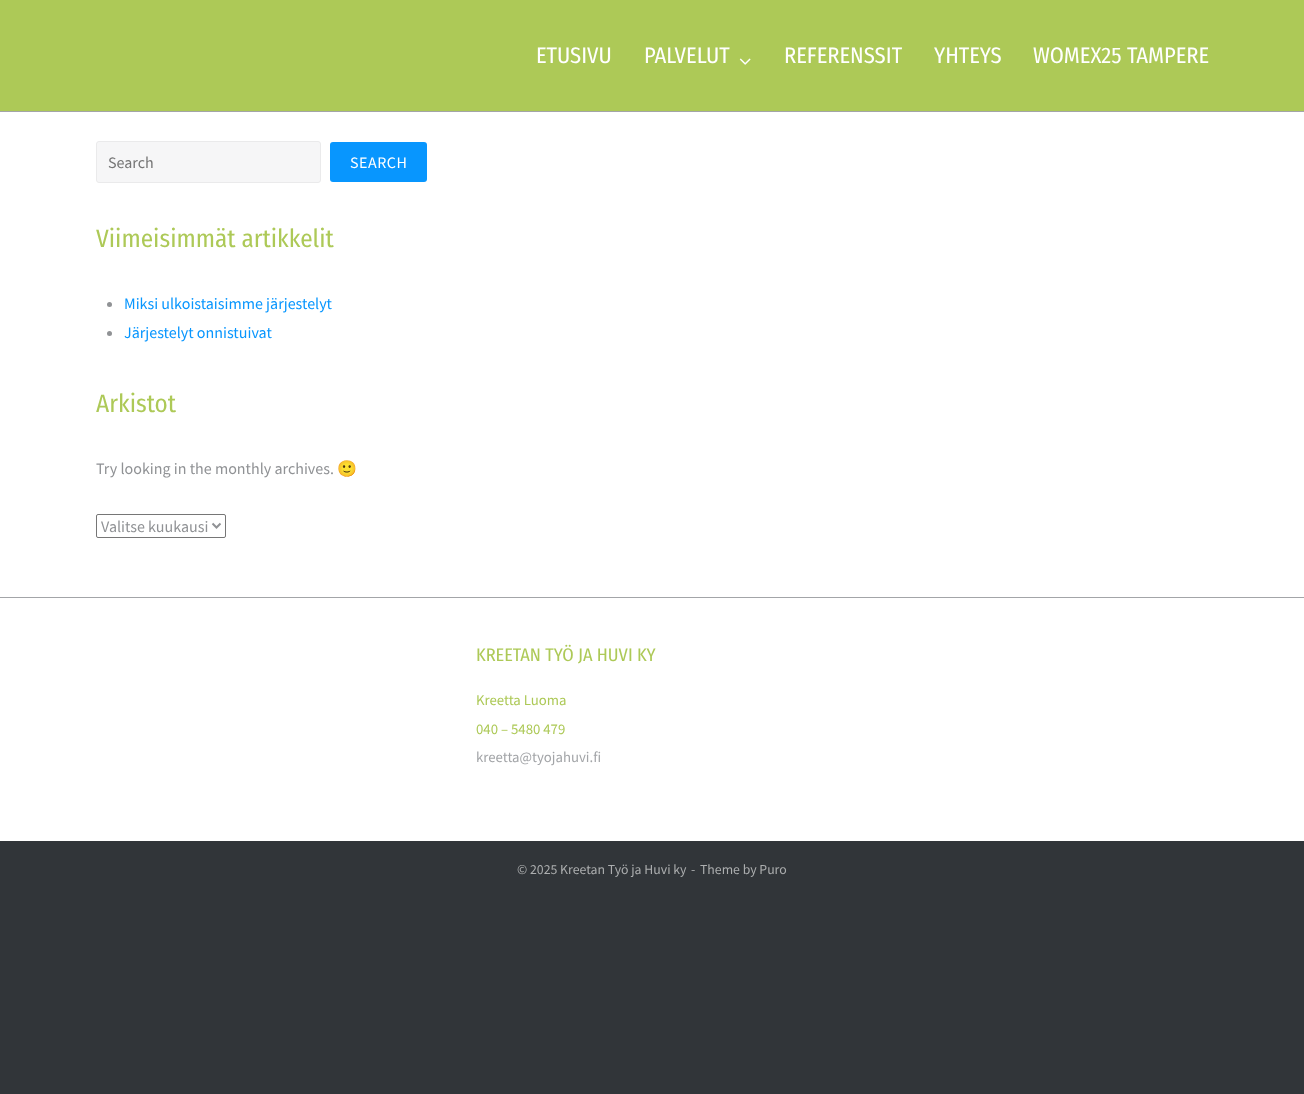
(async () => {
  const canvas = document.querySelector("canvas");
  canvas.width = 1304;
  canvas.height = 1094;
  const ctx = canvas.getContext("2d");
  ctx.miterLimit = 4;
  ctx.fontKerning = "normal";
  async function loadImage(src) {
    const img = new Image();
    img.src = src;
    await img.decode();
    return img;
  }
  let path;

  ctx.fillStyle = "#313539";
  ctx.fillRect(0, 0, 1304, 1094);
  ctx.fillStyle = "#ffffff";
  ctx.fillRect(0, 112, 1304, 729);
  ctx.fillStyle = "#adc957";
  ctx.fillRect(0, 0, 1304, 111);
  ctx.drawImage(await loadImage("img/1.png"), 739, 58, 12, 7);
  ctx.fillStyle = "#a3a5a8";
  ctx.fillRect(0, 111, 1304, 1);
  ctx.fillStyle = "#f6f6f7";
  ctx.beginPath();
  ctx.roundRect(96.5, 141.5, 224, 41, 2.5);
  ctx.fill();
  ctx.strokeStyle = "#eaeaeb";
  ctx.stroke();
  ctx.fillStyle = "#0896fe";
  ctx.beginPath();
  ctx.roundRect(330, 142, 97, 40, 3);
  ctx.fill();
  ctx.fillStyle = "#909295";
  ctx.beginPath();
  ctx.arc(109.5, 304.5, 2.5, 0, Math.PI * 2);
  ctx.fill();
  ctx.beginPath();
  ctx.arc(109.5, 333.5, 2.5, 0, Math.PI * 2);
  ctx.fill();
  ctx.beginPath();
  ctx.roundRect(96.5, 514.5, 129, 23, 1.5);
  ctx.strokeStyle = "#767676";
  ctx.stroke();
  path = new Path2D("M212.5 523.5L216.5 527.5L220.5 523.5");
  ctx.strokeStyle = "#909295";
  ctx.lineWidth = 2;
  ctx.stroke(path);
  ctx.fillStyle = "#a3a5a8";
  ctx.fillRect(0, 597, 1304, 1);
  ctx.font = "22.5px Fira Sans Condensed";
  ctx.fillStyle = "#ffffff";
  for (const [text, x, y] of [
    ["ETUSIVU", 536, 63],
    ["PALVELUT", 644, 63],
    ["REFERENSSIT", 784, 63],
    ["YHTEYS", 934, 63],
    ["WOMEX25 TAMPERE", 1033, 63],
  ]) {
    ctx.fillText(text, x, y);
  }
  ctx.font = "16px Source Sans Pro";
  ctx.fillStyle = "#757575";
  ctx.fillText("Search", 108, 168);
  ctx.letterSpacing = "0.5px";
  ctx.fillStyle = "#ffffff";
  ctx.fillText("SEARCH", 350, 168);
  ctx.letterSpacing = "0px";
  ctx.font = "25.1px Fira Sans Condensed";
  ctx.fillStyle = "#adc957";
  ctx.fillText("Viimeisimmät artikkelit", 96, 247);
  ctx.font = "16px Source Sans Pro";
  ctx.fillStyle = "#0896fe";
  ctx.fillText("Miksi ulkoistaisimme järjestelyt", 124, 309);
  ctx.fillText("Järjestelyt onnistuivat", 124, 338);
  ctx.font = "25.1px Fira Sans Condensed";
  ctx.fillStyle = "#adc957";
  ctx.fillText("Arkistot", 96, 412);
  ctx.font = "16px Source Sans Pro";
  ctx.fillStyle = "#909295";
  ctx.fillText("Try looking in the monthly archives.", 96, 474);
  ctx.font = "16px Noto Color Emoji";
  ctx.fillText("🙂", 337, 474);
  ctx.font = "16px Source Sans Pro";
  ctx.fillText("Valitse kuukausi", 101, 532);
  ctx.font = "18.25px Fira Sans Condensed";
  ctx.fillStyle = "#adc957";
  ctx.fillText("KREETAN TYÖ JA HUVI KY", 476, 661);
  ctx.font = "14.75px Source Sans Pro";
  ctx.fillText("Kreetta Luoma", 476, 705);
  ctx.fillText("040 – 5480 479", 476, 734);
  ctx.fillStyle = "#a3a5a8";
  ctx.fillText("kreetta@tyojahuvi.fi", 476, 762);
  ctx.font = "13.75px Source Sans Pro";
  ctx.fillStyle = "#acaeaf";
  for (const [text, x, y] of [
    ["© 2025 Kreetan Työ ja Huvi ky", 517, 874],
    ["-", 691, 874],
    ["Theme by Puro", 700, 874],
  ]) {
    ctx.fillText(text, x, y);
  }
})();
